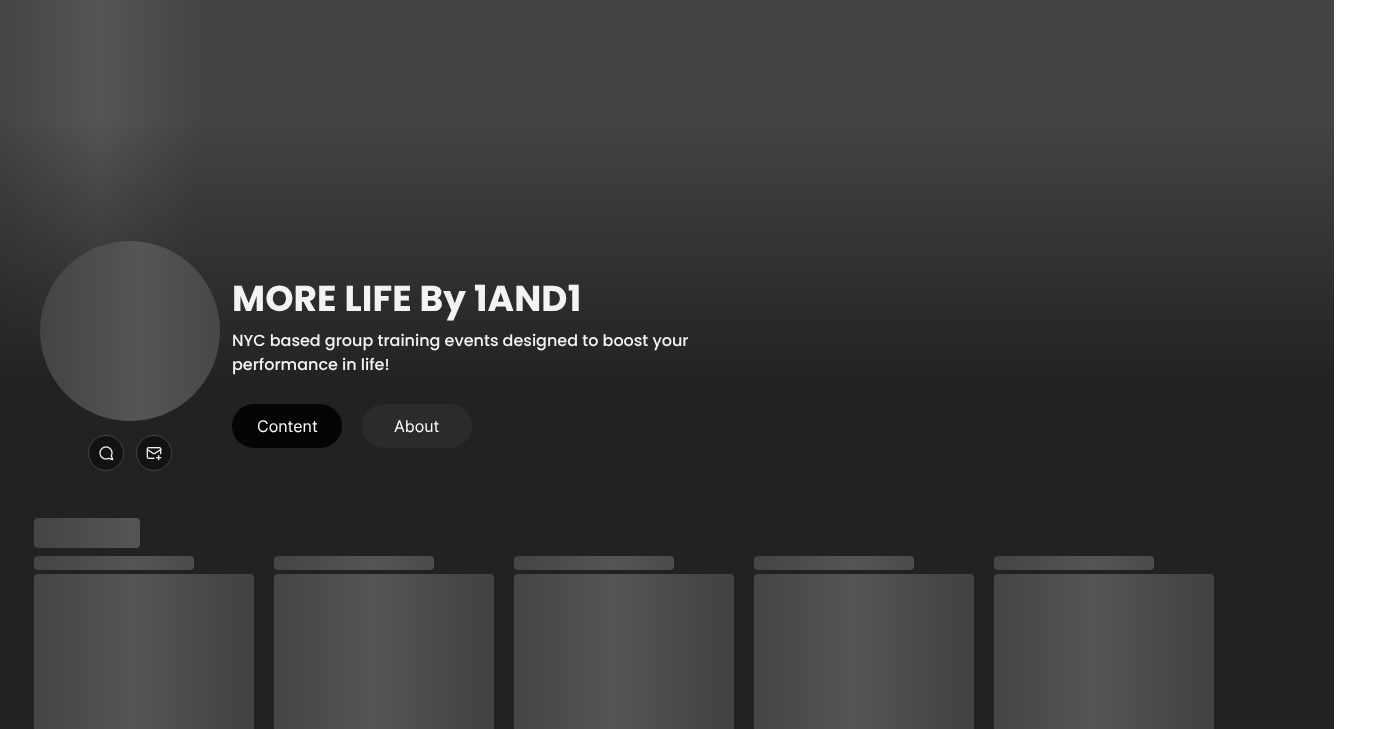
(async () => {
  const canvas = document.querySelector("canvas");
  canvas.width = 1394;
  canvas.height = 729;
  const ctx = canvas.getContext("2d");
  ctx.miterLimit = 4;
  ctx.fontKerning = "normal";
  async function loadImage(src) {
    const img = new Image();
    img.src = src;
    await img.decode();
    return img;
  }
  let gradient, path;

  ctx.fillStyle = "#ffffff";
  ctx.fillRect(0, 0, 1394, 729);
  ctx.fillStyle = "#202223";
  ctx.fillRect(0, 0, 1334, 729);
  ctx.fillStyle = "#444444";
  ctx.beginPath();
  ctx.roundRect(0, -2, 1334, 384, 4);
  ctx.fill();
  ctx.save();
  ctx.beginPath();
  ctx.roundRect(0, -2, 1334, 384, 4);
  ctx.clip();
  gradient = ctx.createLinearGradient(0, 190, 200, 190);
  gradient.addColorStop(0, "#444444");
  gradient.addColorStop(0.5, "#555555");
  gradient.addColorStop(1, "#444444");
  ctx.fillStyle = gradient;
  ctx.beginPath();
  ctx.roundRect(0, 0, 200, 382, [0, 0, 0, 4]);
  ctx.fill();
  ctx.restore();
  gradient = ctx.createLinearGradient(667, 384, 667, 0);
  gradient.addColorStop(0, "#202223");
  gradient.addColorStop(0.7, "rgba(32, 34, 35, 0)");
  ctx.fillStyle = gradient;
  ctx.fillRect(0, 126, 1334, 256);
  gradient = ctx.createLinearGradient(40, 331, 240, 331);
  gradient.addColorStop(0, "#444444");
  gradient.addColorStop(0.5, "#555555");
  gradient.addColorStop(1, "#444444");
  ctx.fillStyle = gradient;
  ctx.beginPath();
  ctx.arc(130, 331, 90, 0, Math.PI * 2);
  ctx.fill();
  ctx.fillStyle = "#121212";
  ctx.beginPath();
  ctx.arc(106, 453, 17.5, 0, Math.PI * 2);
  ctx.fill();
  ctx.strokeStyle = "#444444";
  ctx.stroke();
  ctx.drawImage(await loadImage("img/1.png"), 99, 446, 15, 15);
  ctx.beginPath();
  ctx.arc(154, 453, 17.5, 0, Math.PI * 2);
  ctx.fill();
  ctx.stroke();
  ctx.drawImage(await loadImage("img/2.png"), 146, 447, 16, 14);
  ctx.fillStyle = "#050505";
  ctx.beginPath();
  ctx.roundRect(232, 404, 110, 44, 22);
  ctx.fill();
  ctx.fillStyle = "#2b2b2b";
  ctx.beginPath();
  ctx.roundRect(362, 404, 110, 44, 22);
  ctx.fill();
  gradient = ctx.createLinearGradient(34, 533, 234, 533);
  gradient.addColorStop(0, "#444444");
  gradient.addColorStop(0.5, "#555555");
  gradient.addColorStop(1, "#444444");
  ctx.fillStyle = gradient;
  ctx.beginPath();
  ctx.roundRect(34, 518, 106, 30, 4);
  ctx.fill();
  gradient = ctx.createLinearGradient(34, 563, 234, 563);
  gradient.addColorStop(0, "#444444");
  gradient.addColorStop(0.5, "#555555");
  gradient.addColorStop(1, "#444444");
  ctx.fillStyle = gradient;
  ctx.beginPath();
  ctx.roundRect(34, 556, 160, 14, 4);
  ctx.fill();
  ctx.fillStyle = "#444444";
  ctx.beginPath();
  ctx.roundRect(34, 574, 220, 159, 4);
  ctx.fill();
  gradient = ctx.createLinearGradient(34, 659, 234, 659);
  gradient.addColorStop(0, "#444444");
  gradient.addColorStop(0.5, "#555555");
  gradient.addColorStop(1, "#444444");
  ctx.fillStyle = gradient;
  path = new Path2D("M38 574H234V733H38C36 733 34 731 34 729V578C34 576 36 574 38 574Z");
  ctx.fill(path);
  gradient = ctx.createLinearGradient(274, 563, 474, 563);
  gradient.addColorStop(0, "#444444");
  gradient.addColorStop(0.5, "#555555");
  gradient.addColorStop(1, "#444444");
  ctx.fillStyle = gradient;
  ctx.beginPath();
  ctx.roundRect(274, 556, 160, 14, 4);
  ctx.fill();
  ctx.fillStyle = "#444444";
  ctx.beginPath();
  ctx.roundRect(274, 574, 220, 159, 4);
  ctx.fill();
  gradient = ctx.createLinearGradient(274, 659, 474, 659);
  gradient.addColorStop(0, "#444444");
  gradient.addColorStop(0.5, "#555555");
  gradient.addColorStop(1, "#444444");
  ctx.fillStyle = gradient;
  path = new Path2D("M278 574H474V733H278C276 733 274 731 274 729V578C274 576 276 574 278 574Z");
  ctx.fill(path);
  gradient = ctx.createLinearGradient(514, 563, 714, 563);
  gradient.addColorStop(0, "#444444");
  gradient.addColorStop(0.5, "#555555");
  gradient.addColorStop(1, "#444444");
  ctx.fillStyle = gradient;
  ctx.beginPath();
  ctx.roundRect(514, 556, 160, 14, 4);
  ctx.fill();
  ctx.fillStyle = "#444444";
  ctx.beginPath();
  ctx.roundRect(514, 574, 220, 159, 4);
  ctx.fill();
  gradient = ctx.createLinearGradient(514, 659, 714, 659);
  gradient.addColorStop(0, "#444444");
  gradient.addColorStop(0.5, "#555555");
  gradient.addColorStop(1, "#444444");
  ctx.fillStyle = gradient;
  path = new Path2D("M518 574H714V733H518C516 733 514 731 514 729V578C514 576 516 574 518 574Z");
  ctx.fill(path);
  gradient = ctx.createLinearGradient(754, 563, 954, 563);
  gradient.addColorStop(0, "#444444");
  gradient.addColorStop(0.5, "#555555");
  gradient.addColorStop(1, "#444444");
  ctx.fillStyle = gradient;
  ctx.beginPath();
  ctx.roundRect(754, 556, 160, 14, 4);
  ctx.fill();
  ctx.fillStyle = "#444444";
  ctx.beginPath();
  ctx.roundRect(754, 574, 220, 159, 4);
  ctx.fill();
  gradient = ctx.createLinearGradient(754, 659, 954, 659);
  gradient.addColorStop(0, "#444444");
  gradient.addColorStop(0.5, "#555555");
  gradient.addColorStop(1, "#444444");
  ctx.fillStyle = gradient;
  path = new Path2D("M758 574H954V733H758C756 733 754 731 754 729V578C754 576 756 574 758 574Z");
  ctx.fill(path);
  gradient = ctx.createLinearGradient(994, 563, 1194, 563);
  gradient.addColorStop(0, "#444444");
  gradient.addColorStop(0.5, "#555555");
  gradient.addColorStop(1, "#444444");
  ctx.fillStyle = gradient;
  ctx.beginPath();
  ctx.roundRect(994, 556, 160, 14, 4);
  ctx.fill();
  ctx.fillStyle = "#444444";
  ctx.beginPath();
  ctx.roundRect(994, 574, 220, 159, 4);
  ctx.fill();
  gradient = ctx.createLinearGradient(994, 659, 1194, 659);
  gradient.addColorStop(0, "#444444");
  gradient.addColorStop(0.5, "#555555");
  gradient.addColorStop(1, "#444444");
  ctx.fillStyle = gradient;
  path = new Path2D("M998 574H1194V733H998C996 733 994 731 994 729V578C994 576 996 574 998 574Z");
  ctx.fill(path);
  ctx.letterSpacing = "0.1px";
  ctx.font = "bold 36px Poppins";
  ctx.fillStyle = "#f3f3f3";
  ctx.fillText("MORE LIFE By 1AND1", 232, 311);
  ctx.letterSpacing = "0px";
  ctx.font = "500 16px Poppins";
  ctx.fillText("NYC based group training events designed to boost your", 232, 346);
  ctx.fillText("performance in life!", 232, 370);
  ctx.font = "16px Inter";
  ctx.fillStyle = "#fcfcfc";
  ctx.fillText("Content", 257, 432);
  ctx.fillText("About", 394, 432);
})();
